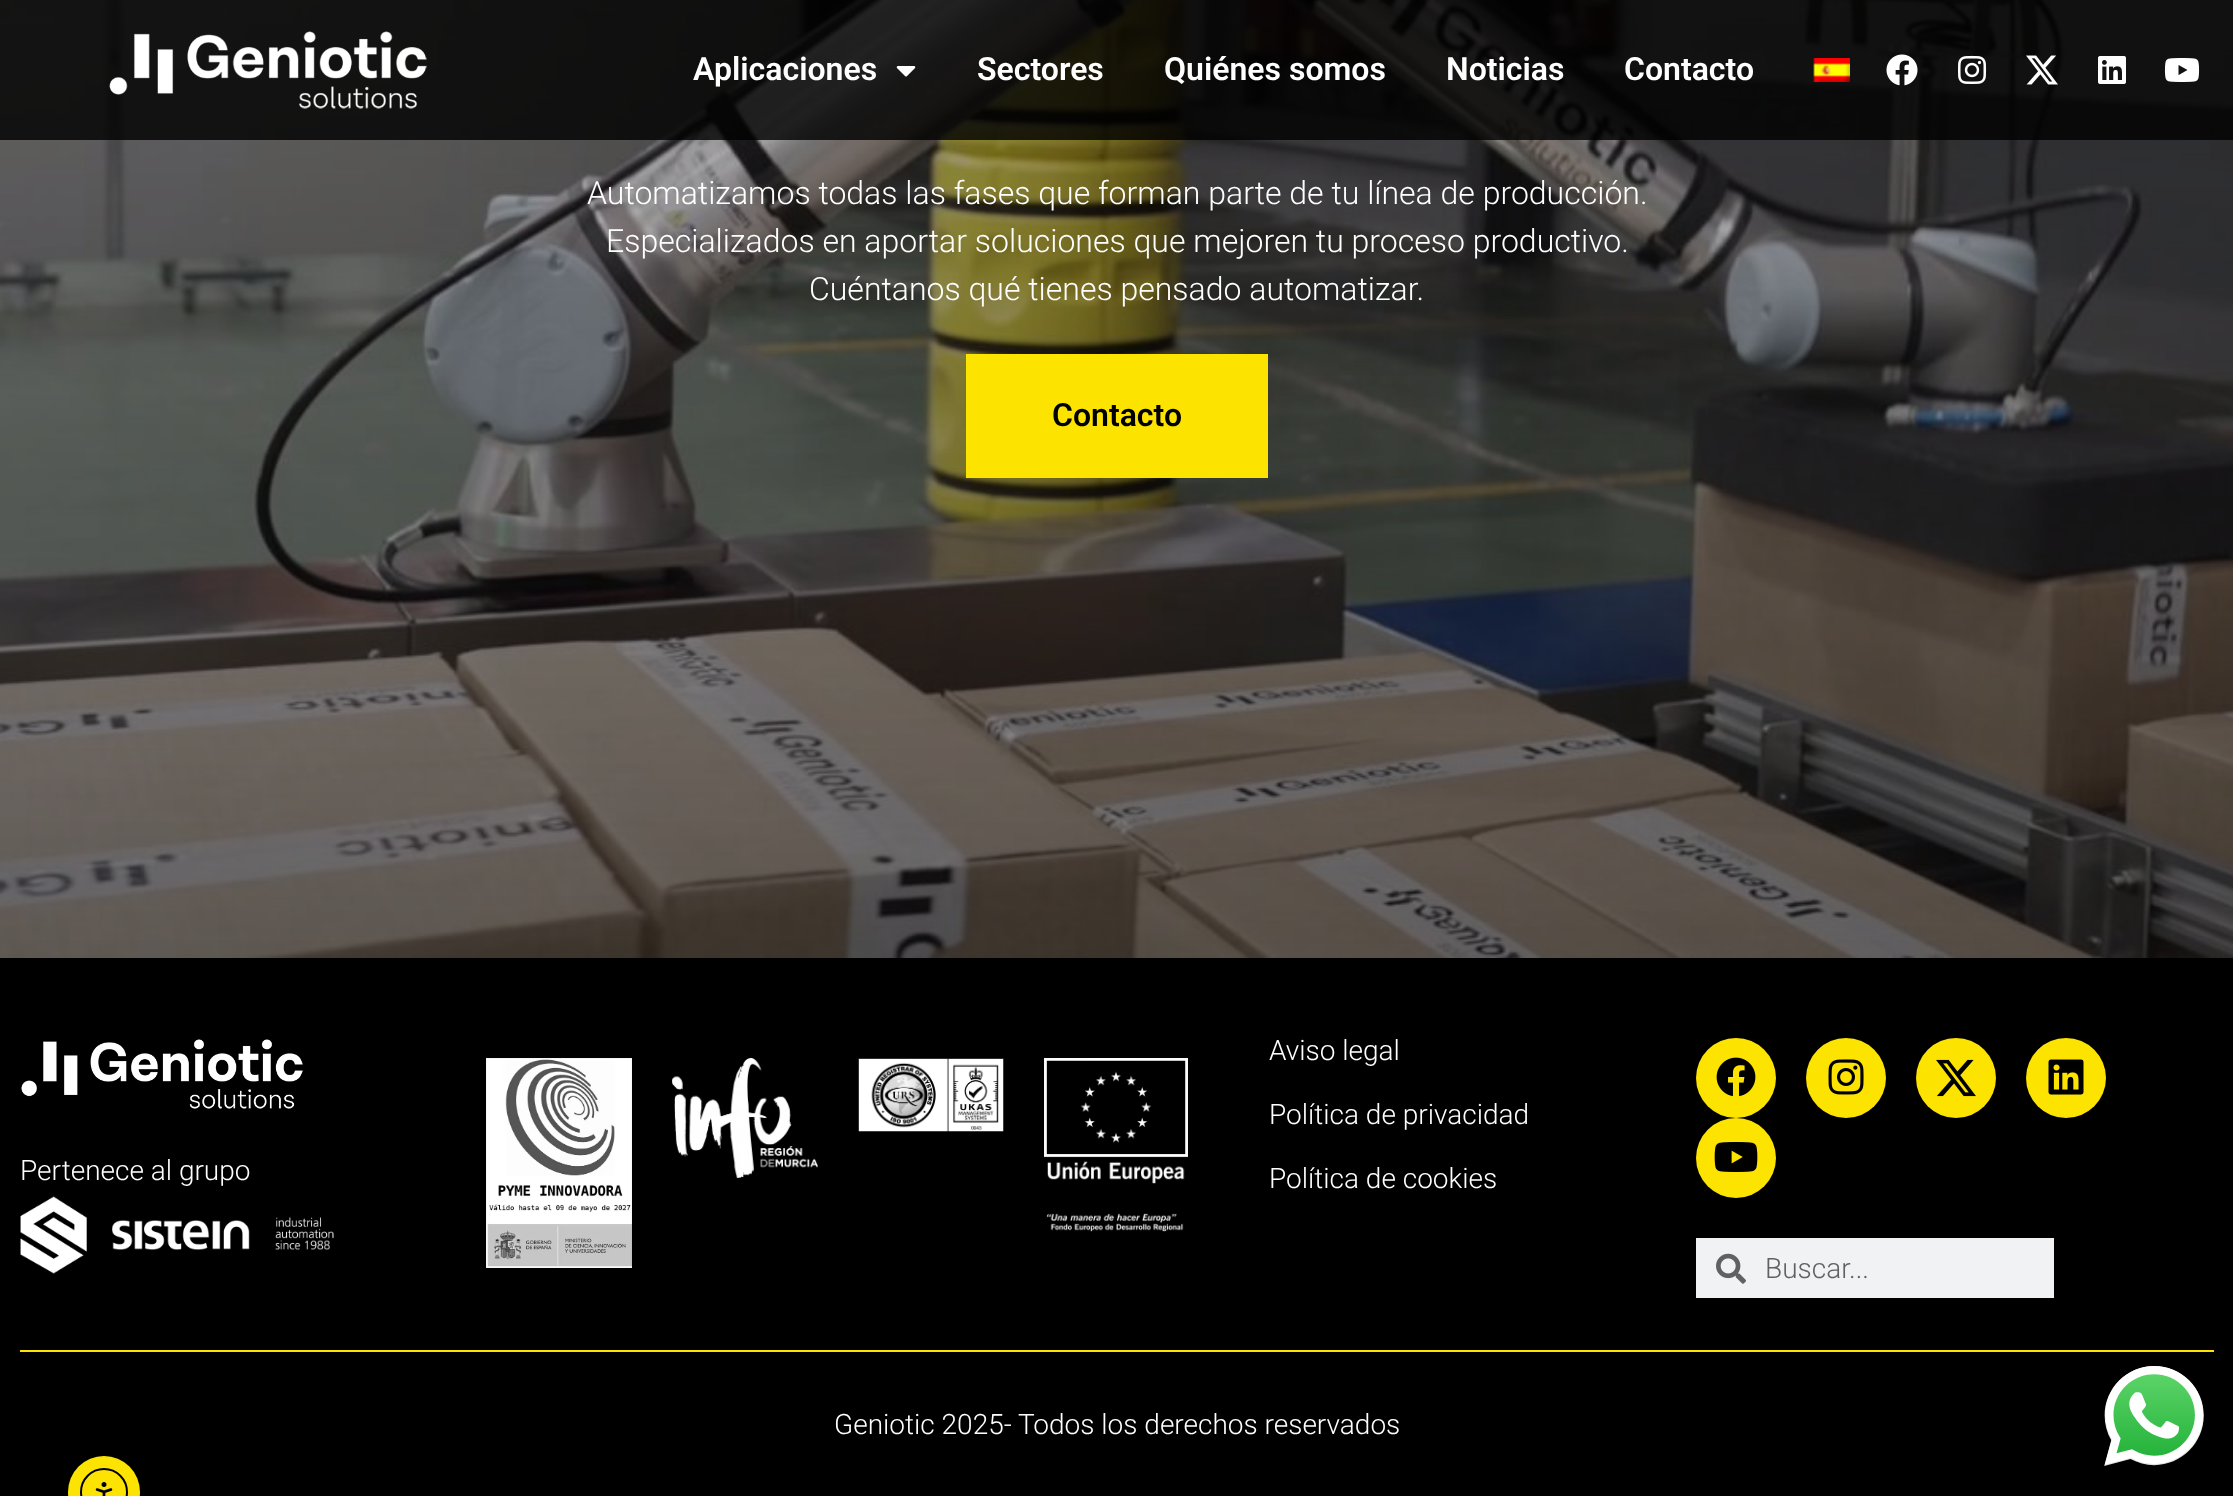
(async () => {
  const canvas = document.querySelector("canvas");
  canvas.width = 2233;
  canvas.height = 1496;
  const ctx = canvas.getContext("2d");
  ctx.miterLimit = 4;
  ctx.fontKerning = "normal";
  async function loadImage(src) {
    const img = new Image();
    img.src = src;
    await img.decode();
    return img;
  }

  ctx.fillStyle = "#ffffff";
  ctx.fillRect(0, 0, 2233, 1496);
  ctx.drawImage(await loadImage("img/9.png"), 0, 0, 2233, 958);
  ctx.fillStyle = "rgba(0, 0, 0, 0.8)";
  ctx.fillRect(0, 0, 2233, 140);
  ctx.drawImage(await loadImage("img/1.png"), 109, 31, 318, 78);
  ctx.drawImage(await loadImage("img/2.png"), 896, 66, 20, 11);
  ctx.drawImage(await loadImage("img/3.png"), 1813, 58, 37, 24);
  ctx.drawImage(await loadImage("img/4.png"), 1886, 54, 32, 32);
  ctx.drawImage(await loadImage("img/5.png"), 1958, 55, 29, 29);
  ctx.drawImage(await loadImage("img/6.png"), 2026, 55, 32, 30);
  ctx.drawImage(await loadImage("img/7.png"), 2098, 56, 28, 28);
  ctx.drawImage(await loadImage("img/8.png"), 2164, 58, 36, 24);
  ctx.fillStyle = "#fce300";
  ctx.fillRect(966, 354, 302, 124);
  ctx.fillStyle = "#000000";
  ctx.fillRect(0, 958, 2233, 538);
  ctx.drawImage(await loadImage("img/10.png"), 21, 1039, 282, 70);
  ctx.drawImage(await loadImage("img/11.png"), 20, 1196, 314, 78);
  ctx.drawImage(await loadImage("img/12.png"), 486, 1058, 146, 210);
  ctx.drawImage(await loadImage("img/13.png"), 672, 1058, 146, 120);
  ctx.drawImage(await loadImage("img/14.png"), 858, 1058, 146, 74);
  ctx.drawImage(await loadImage("img/15.png"), 1044, 1058, 144, 126);
  ctx.drawImage(await loadImage("img/16.png"), 1046, 1213, 138, 19);
  ctx.fillStyle = "#fce300";
  ctx.beginPath();
  ctx.arc(1736, 1078, 40, 0, Math.PI * 2);
  ctx.fill();
  ctx.drawImage(await loadImage("img/17.png"), 1716, 1057, 40, 40);
  ctx.beginPath();
  ctx.arc(1846, 1078, 40, 0, Math.PI * 2);
  ctx.fill();
  ctx.drawImage(await loadImage("img/18.png"), 1828, 1059, 36, 36);
  ctx.beginPath();
  ctx.arc(1956, 1078, 40, 0, Math.PI * 2);
  ctx.fill();
  ctx.drawImage(await loadImage("img/19.png"), 1936, 1059, 40, 38);
  ctx.beginPath();
  ctx.arc(2066, 1078, 40, 0, Math.PI * 2);
  ctx.fill();
  ctx.drawImage(await loadImage("img/20.png"), 2048, 1059, 36, 36);
  ctx.beginPath();
  ctx.arc(1736, 1158, 40, 0, Math.PI * 2);
  ctx.fill();
  ctx.drawImage(await loadImage("img/21.png"), 1714, 1142, 44, 30);
  ctx.fillStyle = "#f1f2f3";
  ctx.fillRect(1696, 1238, 358, 60);
  ctx.drawImage(await loadImage("img/22.png"), 1716, 1253, 30, 31);
  ctx.fillStyle = "#fce300";
  ctx.fillRect(20, 1350, 2194, 2);
  ctx.drawImage(await loadImage("img/23.png"), 2104, 1366, 100, 100);
  ctx.fillStyle = "#fce302";
  ctx.beginPath();
  ctx.arc(104, 1492, 36, 0, Math.PI * 2);
  ctx.fill();
  ctx.beginPath();
  ctx.arc(104, 1492, 23, 0, Math.PI * 2);
  ctx.strokeStyle = "#000000";
  ctx.lineWidth = 2;
  ctx.stroke();
  ctx.drawImage(await loadImage("img/24.png"), 95, 1482, 18, 14);
  ctx.font = "600 32px Roboto";
  ctx.fillStyle = "#ffffff";
  for (const [text, x, y] of [
    ["Aplicaciones", 693, 80],
    ["Sectores", 977, 80],
    ["Quiénes somos", 1164, 80],
    ["Noticias", 1446, 80],
    ["Contacto", 1624, 80],
  ]) {
    ctx.fillText(text, x, y);
  }
  ctx.font = "300 32px Roboto";
  for (const [text, x, y] of [
    ["Automatizamos todas las fases que forman parte de tu línea de producción.", 587, 204],
    ["Especializados en aportar soluciones que mejoren tu proceso productivo.", 606, 252],
    ["Cuéntanos qué tienes pensado automatizar.", 809, 300],
  ]) {
    ctx.fillText(text, x, y);
  }
  ctx.font = "600 32px Roboto";
  ctx.fillStyle = "#000000";
  ctx.fillText("Contacto", 1052, 426);
  ctx.font = "300 28px Roboto";
  ctx.fillStyle = "#ffffff";
  for (const [text, x, y] of [
    ["Pertenece al grupo", 20, 1180],
    ["Aviso legal", 1269, 1060],
    ["Política de privacidad", 1269, 1124],
    ["Política de cookies", 1269, 1188],
  ]) {
    ctx.fillText(text, x, y);
  }
  ctx.fillStyle = "#606161";
  ctx.fillText("Buscar...", 1765, 1278);
  ctx.fillStyle = "#ffffff";
  ctx.fillText("Geniotic 2025- Todos los derechos reservados", 834, 1434);
})();
